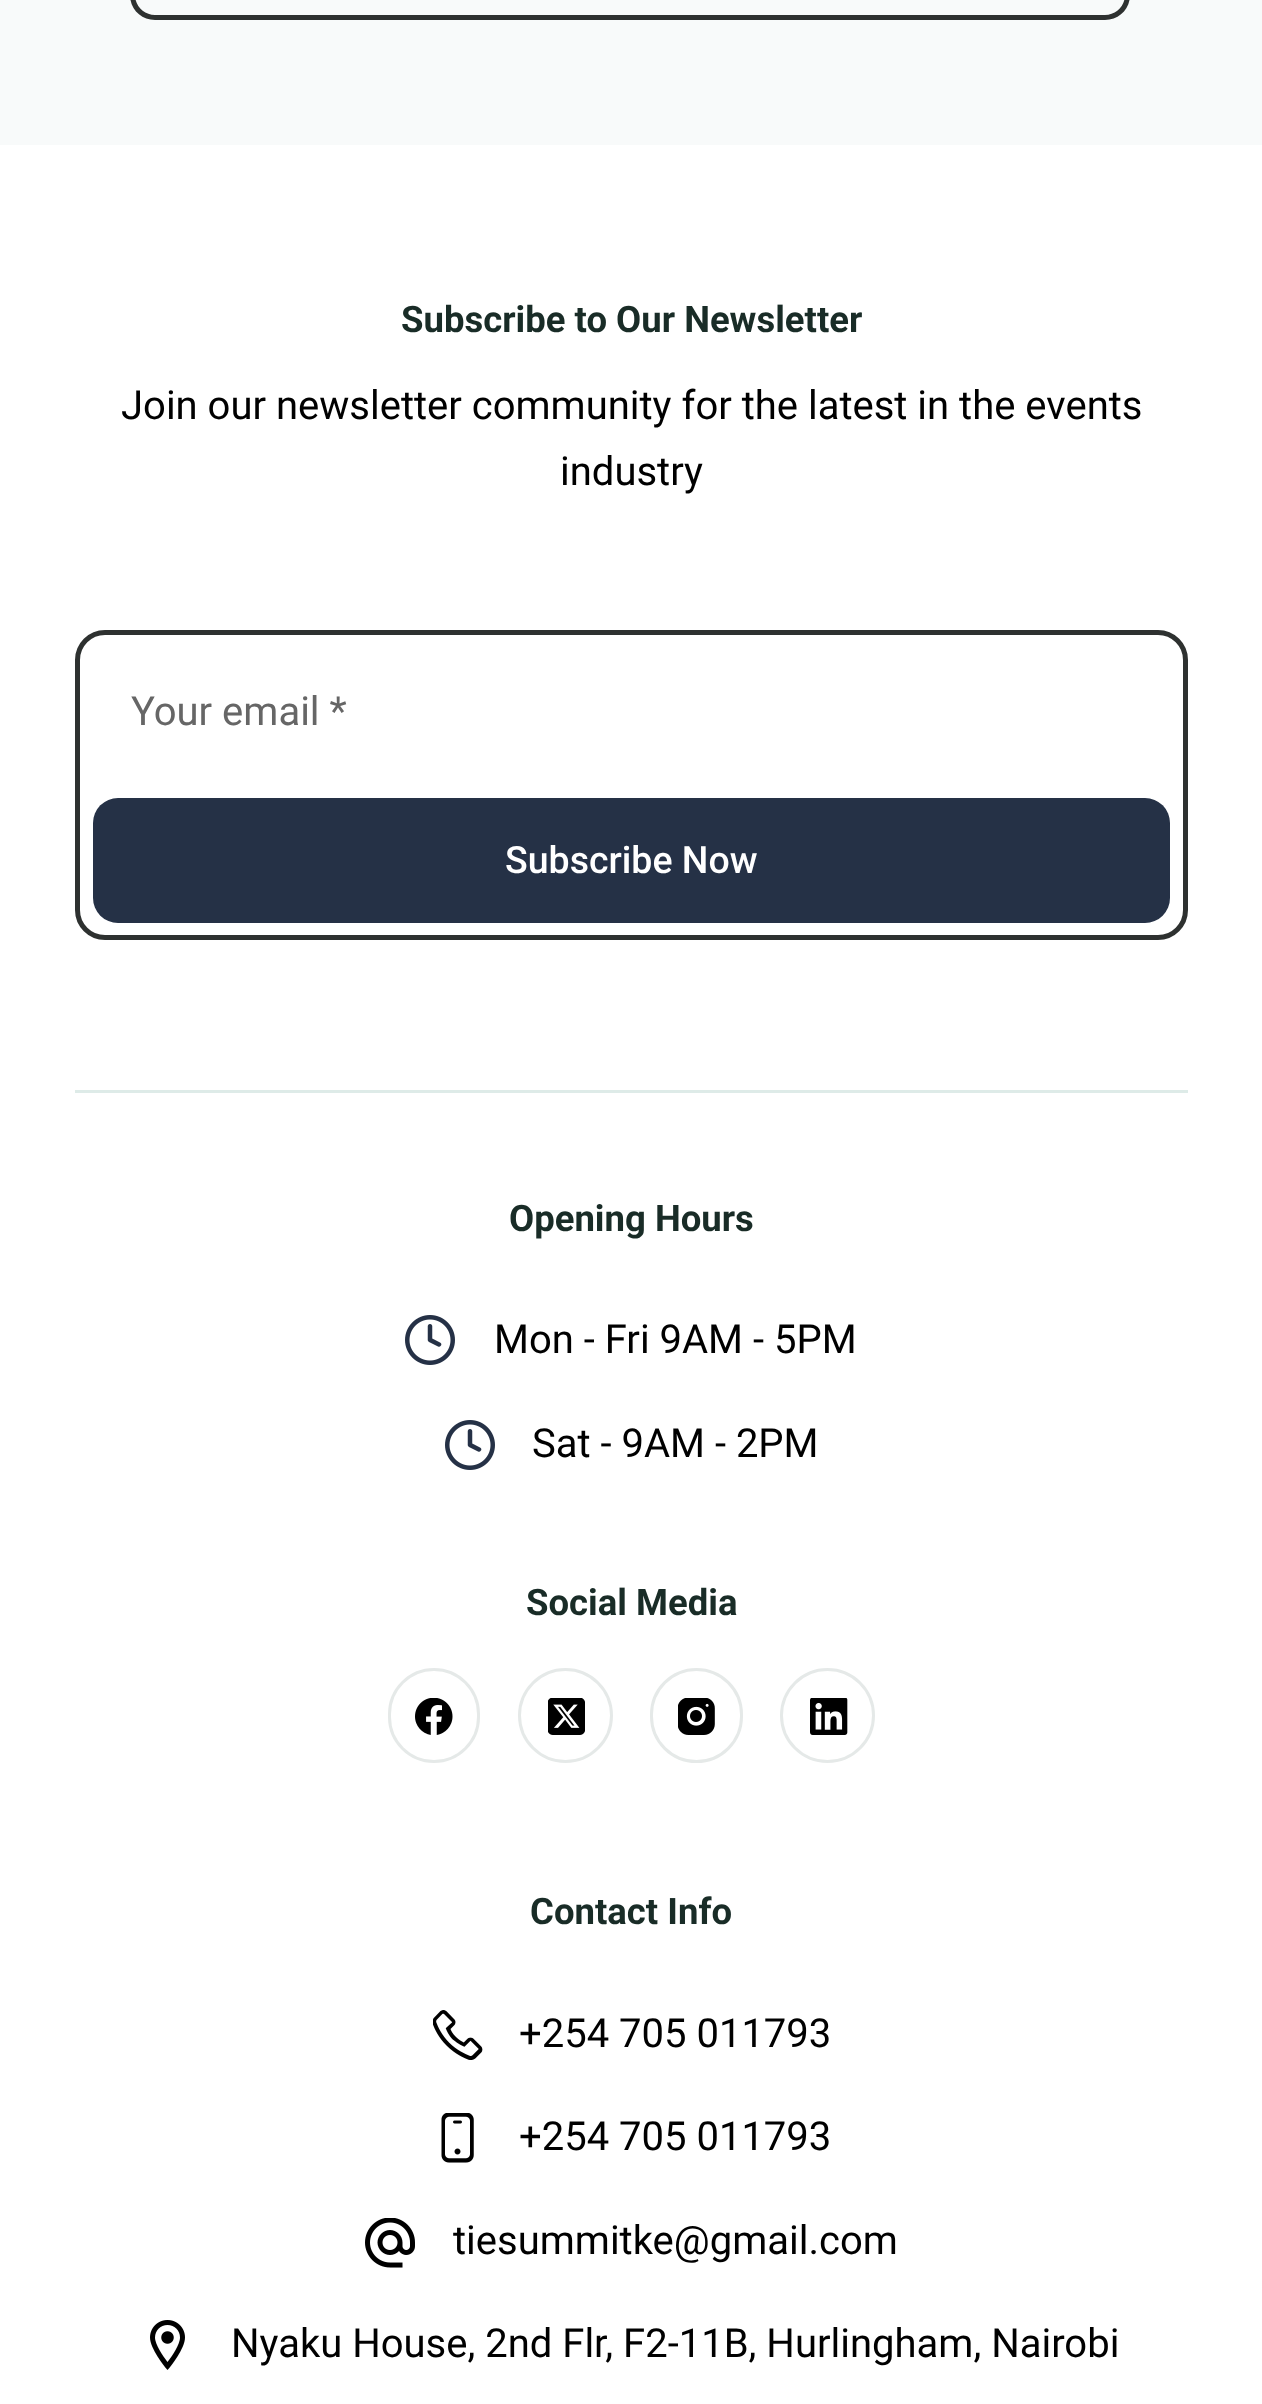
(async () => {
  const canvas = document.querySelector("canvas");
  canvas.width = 1262;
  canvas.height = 2404;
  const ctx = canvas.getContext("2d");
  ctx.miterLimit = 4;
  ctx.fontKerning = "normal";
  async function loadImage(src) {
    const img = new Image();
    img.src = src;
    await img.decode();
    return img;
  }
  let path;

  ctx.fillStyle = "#f8fafa";
  ctx.fillRect(0, 0, 1262, 2404);
  ctx.fillStyle = "#2e3130";
  path = new Path2D("M155-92H1018V20H155C141 20 130 9 130-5V-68C130-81 141-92 155-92ZM155-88H1018V15H155C144 15 135 6 135-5V-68C135-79 144-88 155-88Z");
  ctx.fill(path, "evenodd");
  path = new Path2D("M1018-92H1105C1119-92 1130-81 1130-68V-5C1130 9 1119 20 1105 20H1018ZM1018-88H1105C1116-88 1125-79 1125-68V-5C1125 6 1116 15 1105 15H1018Z");
  ctx.fill(path, "evenodd");
  ctx.fillStyle = "#ffffff";
  ctx.fillRect(0, 145, 1262, 2259);
  ctx.fillStyle = "#deebe8";
  ctx.fillRect(75, 1090, 1113, 3);
  ctx.beginPath();
  ctx.roundRect(77.5, 632.5, 1108, 305, 27.5);
  ctx.strokeStyle = "#2e3130";
  ctx.lineWidth = 5;
  ctx.stroke();
  ctx.fillStyle = "#253146";
  ctx.beginPath();
  ctx.roundRect(93, 798, 1077, 125, 25);
  ctx.fill();
  ctx.drawImage(await loadImage("img/1.png"), 405, 1315, 50, 50);
  ctx.drawImage(await loadImage("img/1.png"), 445, 1420, 50, 50);
  ctx.beginPath();
  ctx.roundRect(389.5, 1669.5, 89, 92, 44.5);
  ctx.strokeStyle = "#e5e9e8";
  ctx.lineWidth = 3;
  ctx.stroke();
  ctx.drawImage(await loadImage("img/2.png"), 415, 1698, 38, 37);
  ctx.beginPath();
  ctx.arc(565.5, 1715.5, 46, 0, Math.PI * 2);
  ctx.stroke();
  ctx.drawImage(await loadImage("img/3.png"), 548, 1698, 37, 37);
  ctx.beginPath();
  ctx.roundRect(651.5, 1669.5, 90, 92, 45);
  ctx.stroke();
  ctx.drawImage(await loadImage("img/4.png"), 678, 1698, 37, 37);
  ctx.beginPath();
  ctx.arc(827.5, 1715.5, 46, 0, Math.PI * 2);
  ctx.stroke();
  ctx.drawImage(await loadImage("img/5.png"), 810, 1698, 38, 37);
  ctx.drawImage(await loadImage("img/6.png"), 433, 2010, 50, 50);
  ctx.drawImage(await loadImage("img/7.png"), 441, 2113, 33, 50);
  ctx.drawImage(await loadImage("img/8.png"), 365, 2218, 50, 50);
  ctx.drawImage(await loadImage("img/9.png"), 150, 2320, 35, 50);
  ctx.font = "bold 36.5px Roboto";
  ctx.fillStyle = "#192c27";
  ctx.fillText("Subscribe to Our Newsletter", 401, 332);
  ctx.font = "40px Roboto";
  ctx.fillStyle = "#000000";
  ctx.fillText("Join our newsletter community for the latest in the events", 121, 419);
  ctx.fillText("industry", 560, 485);
  ctx.fillStyle = "#666666";
  ctx.fillText("Your email *", 131, 725);
  ctx.font = "500 37.5px Roboto";
  ctx.fillStyle = "#ffffff";
  ctx.fillText("Subscribe Now", 505, 873);
  ctx.font = "bold 36.5px Roboto";
  ctx.fillStyle = "#192c27";
  ctx.fillText("Opening Hours", 509, 1231);
  ctx.font = "40px Roboto";
  ctx.fillStyle = "#000000";
  ctx.fillText("Mon - Fri 9AM - 5PM", 494, 1353);
  ctx.fillText("Sat - 9AM - 2PM", 532, 1457);
  ctx.font = "bold 36.5px Roboto";
  ctx.fillStyle = "#192c27";
  ctx.fillText("Social Media", 526, 1615);
  ctx.fillText("Contact Info", 530, 1924);
  ctx.font = "40px Roboto";
  ctx.fillStyle = "#000000";
  for (const [text, x, y] of [
    ["+254 705 011793", 519, 2047],
    ["+254 705 011793", 519, 2150],
    ["tiesummitke@gmail.com", 453, 2254],
    ["Nyaku House, 2nd Flr, F2-11B, Hurlingham, Nairobi", 231, 2357],
  ]) {
    ctx.fillText(text, x, y);
  }
})();
